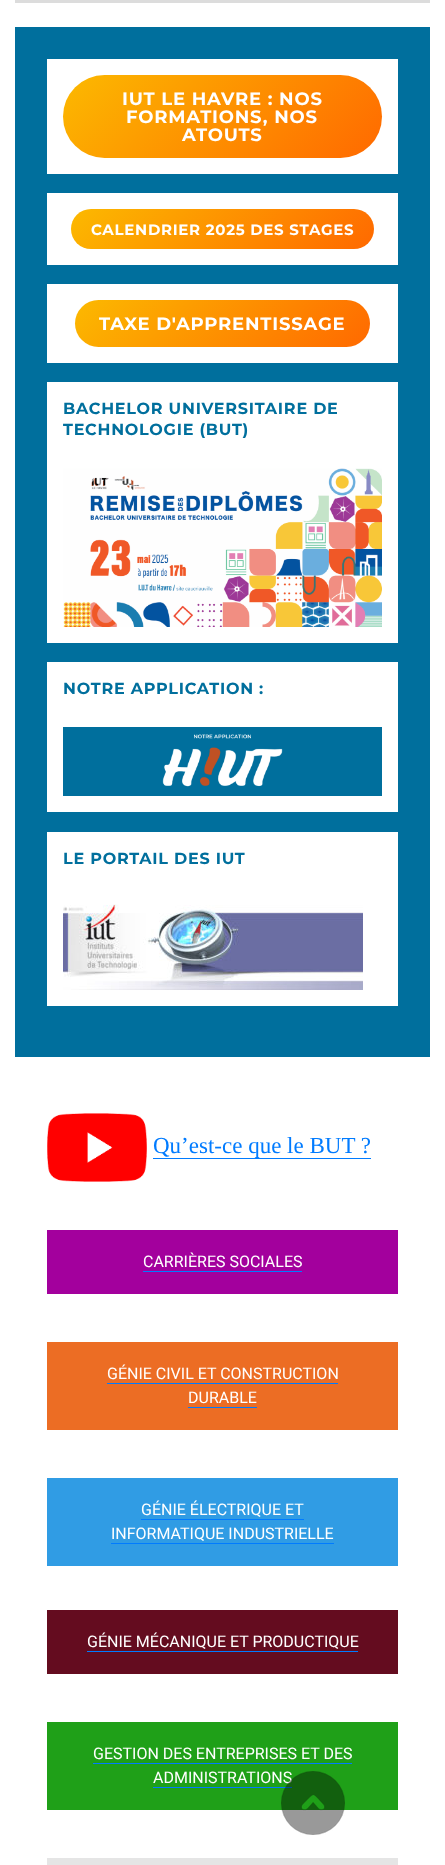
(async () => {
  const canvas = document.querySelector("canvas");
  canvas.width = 445;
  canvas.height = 1865;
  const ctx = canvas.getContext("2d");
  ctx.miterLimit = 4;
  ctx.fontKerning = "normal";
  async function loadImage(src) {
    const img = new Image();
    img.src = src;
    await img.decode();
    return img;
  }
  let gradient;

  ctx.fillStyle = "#ffffff";
  ctx.fillRect(0, 0, 445, 1865);
  for (const [x, y, w, h, color] of [
    [15, 0, 415, 3, "#dcdcdc"],
    [15, 27, 415, 1030, "#006f9d"],
    [47, 59, 351, 115, "#ffffff"],
  ]) {
    ctx.fillStyle = color;
    ctx.fillRect(x, y, w, h);
  }
  gradient = ctx.createLinearGradient(122, 16, 323, 217);
  gradient.addColorStop(0, "#fcb900");
  gradient.addColorStop(1, "#ff6900");
  ctx.fillStyle = gradient;
  ctx.beginPath();
  ctx.roundRect(63, 75, 319, 83, 41.5);
  ctx.fill();
  ctx.fillStyle = "#ffffff";
  ctx.fillRect(47, 193, 351, 72);
  gradient = ctx.createLinearGradient(137, 143, 308, 315);
  gradient.addColorStop(0, "#fcb900");
  gradient.addColorStop(1, "#ff6900");
  ctx.fillStyle = gradient;
  ctx.beginPath();
  ctx.roundRect(71, 209, 303, 40, 20);
  ctx.fill();
  ctx.fillStyle = "#ffffff";
  ctx.fillRect(47, 284, 351, 79);
  gradient = ctx.createLinearGradient(137, 238, 308, 409);
  gradient.addColorStop(0, "#fcb900");
  gradient.addColorStop(1, "#ff6900");
  ctx.fillStyle = gradient;
  ctx.beginPath();
  ctx.roundRect(75, 300, 295, 47, 23.5);
  ctx.fill();
  ctx.fillStyle = "#ffffff";
  ctx.fillRect(47, 382, 351, 261);
  ctx.drawImage(await loadImage("img/1.png"), 63, 468, 319, 159);
  ctx.fillRect(47, 662, 351, 150);
  ctx.drawImage(await loadImage("img/2.png"), 63, 727, 319, 69);
  ctx.fillRect(47, 832, 351, 174);
  ctx.drawImage(await loadImage("img/3.png"), 63, 904, 300, 86);
  ctx.drawImage(await loadImage("img/4.png"), 47, 1113, 100, 69);
  for (const [x, y, w, h, color] of [
    [153, 1158, 218, 1, "#007bff"],
    [47, 1230, 351, 64, "#a3009d"],
    [143, 1271, 159, 1, "#007bff"],
    [47, 1342, 351, 88, "#ec6d24"],
    [107, 1383, 231, 1, "#007bff"],
    [188, 1407, 69, 1, "#007bff"],
    [47, 1478, 351, 88, "#309ce4"],
    [141, 1519, 163, 1, "#007bff"],
    [111, 1543, 223, 1, "#007bff"],
    [47, 1610, 351, 64, "#640c1f"],
    [87, 1651, 271, 1, "#007bff"],
    [47, 1722, 351, 88, "#1fa018"],
    [93, 1763, 259, 1, "#007bff"],
    [153, 1787, 139, 1, "#007bff"],
    [47, 1858, 351, 7, "#e5e5e5"],
  ]) {
    ctx.fillStyle = color;
    ctx.fillRect(x, y, w, h);
  }
  ctx.letterSpacing = "0.8px";
  ctx.font = "bold 18px Montserrat";
  ctx.fillStyle = "#ffffff";
  for (const [text, x, y] of [
    ["IUT LE HAVRE : NOS", 122, 105],
    ["FORMATIONS, NOS", 126, 123],
    ["ATOUTS", 182, 141],
  ]) {
    ctx.fillText(text, x, y);
  }
  ctx.letterSpacing = "0.7px";
  ctx.font = "bold 15px Montserrat";
  ctx.fillText("CALENDRIER 2025 DES STAGES", 91, 235);
  ctx.letterSpacing = "0.8px";
  ctx.font = "bold 18px Montserrat";
  ctx.fillText("TAXE D'APPRENTISSAGE", 99, 330);
  ctx.letterSpacing = "0.75px";
  ctx.font = "bold 16px Montserrat";
  ctx.fillStyle = "#006f9d";
  for (const [text, x, y] of [
    ["BACHELOR UNIVERSITAIRE DE", 63, 414],
    ["TECHNOLOGIE (BUT)", 63, 435],
    ["NOTRE APPLICATION :", 63, 694],
    ["LE PORTAIL DES IUT", 63, 864],
  ]) {
    ctx.fillText(text, x, y);
  }
  ctx.letterSpacing = "0px";
  ctx.font = "23px Liberation Serif";
  ctx.fillStyle = "#007bff";
  ctx.fillText("Qu’est-ce que le BUT ?", 153, 1153);
  ctx.font = "16px Roboto";
  ctx.fillStyle = "#ffffff";
  for (const [text, x, y] of [
    ["CARRIÈRES SOCIALES", 143, 1267],
    ["GÉNIE CIVIL ET CONSTRUCTION", 107, 1379],
    ["DURABLE", 188, 1403],
    ["GÉNIE ÉLECTRIQUE ET", 141, 1515],
    ["INFORMATIQUE INDUSTRIELLE", 111, 1539],
    ["GÉNIE MÉCANIQUE ET PRODUCTIQUE", 87, 1647],
    ["GESTION DES ENTREPRISES ET DES", 93, 1759],
    ["ADMINISTRATIONS", 153, 1783],
  ]) {
    ctx.fillText(text, x, y);
  }
  ctx.drawImage(await loadImage("img/5.png"), 281, 1771, 64, 64);
})();
